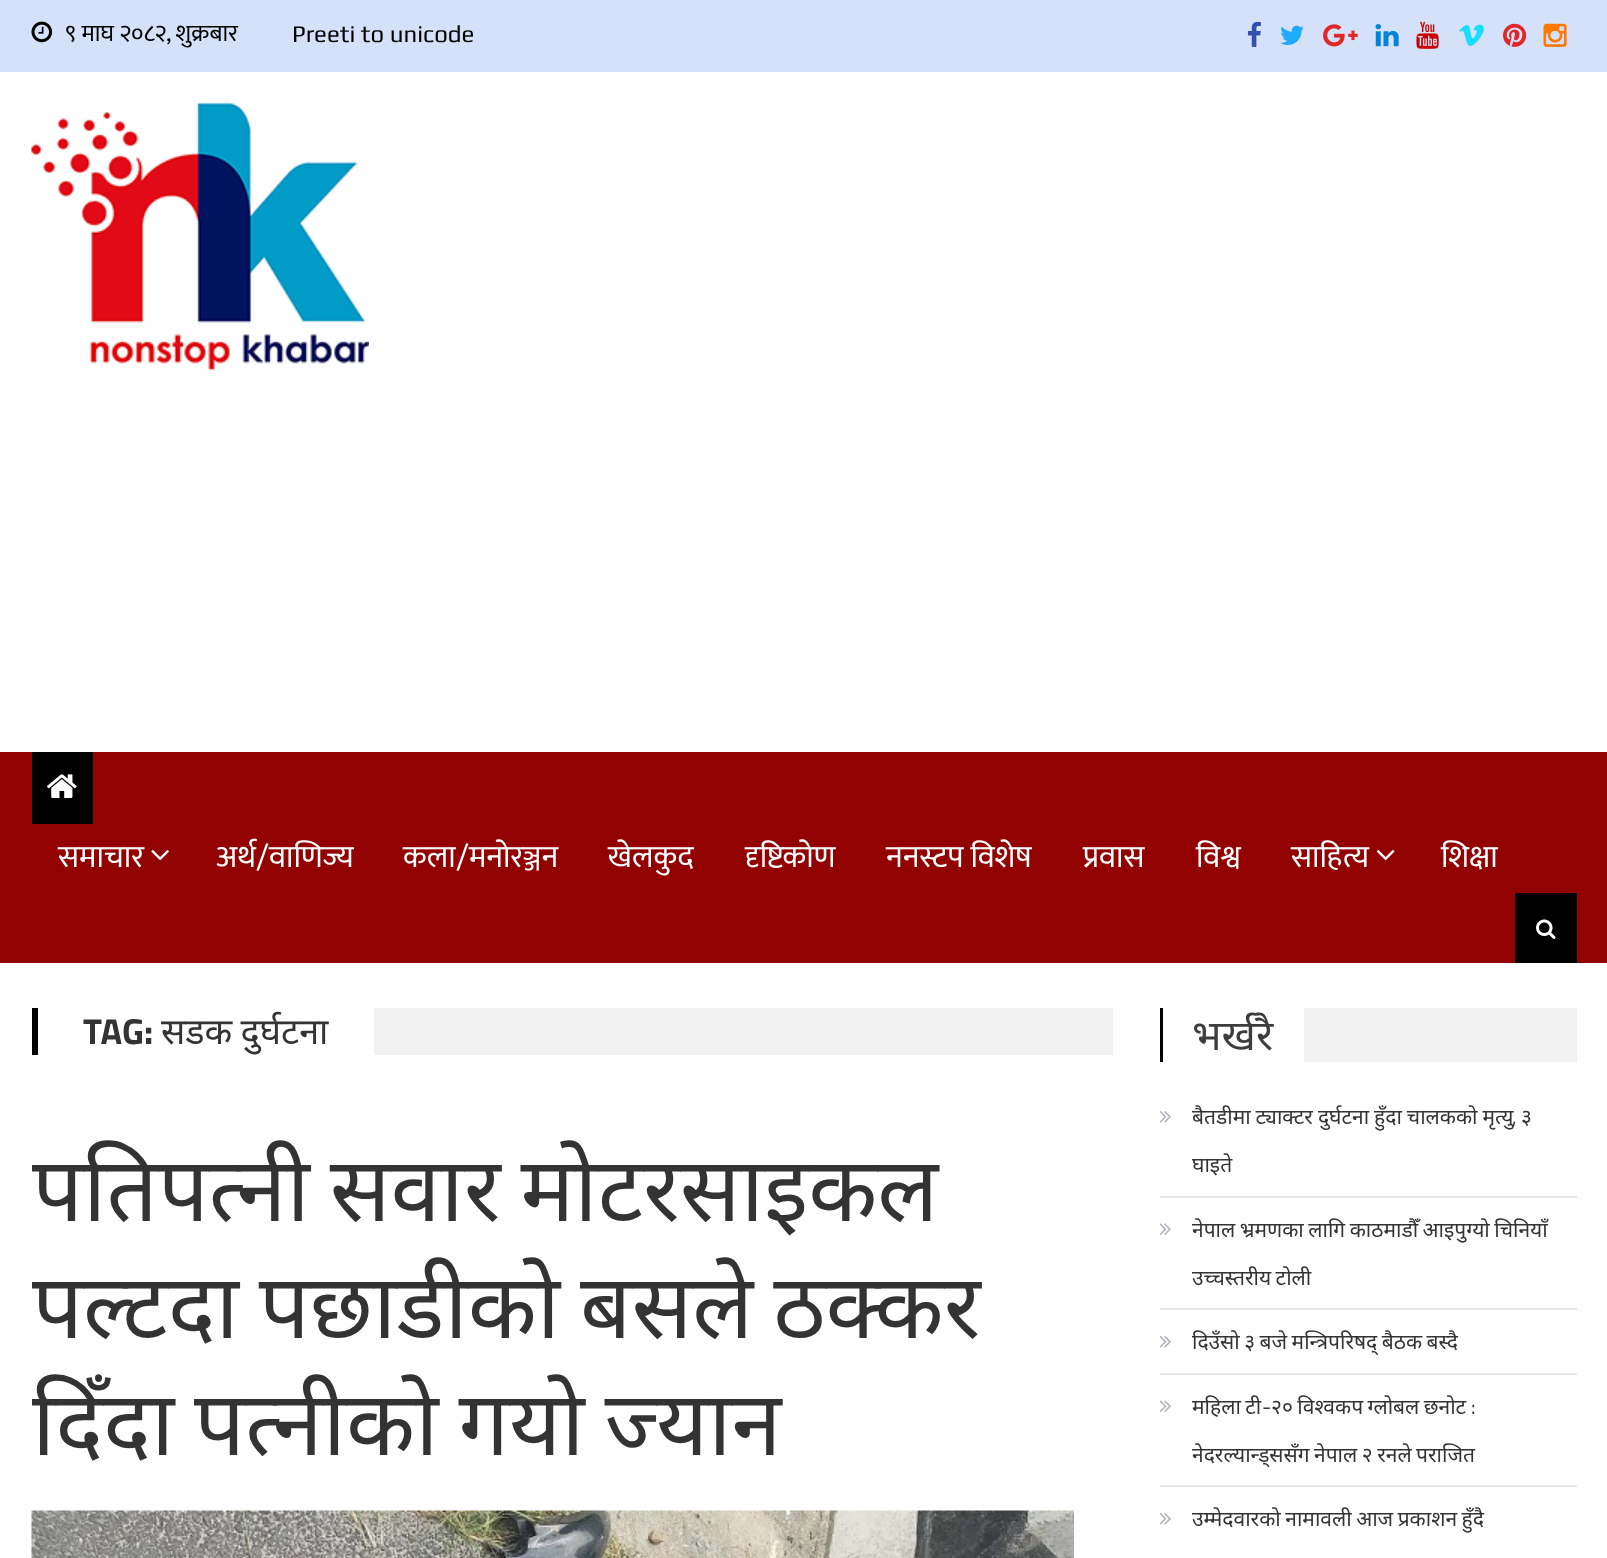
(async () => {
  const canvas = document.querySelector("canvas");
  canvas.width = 1607;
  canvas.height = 1558;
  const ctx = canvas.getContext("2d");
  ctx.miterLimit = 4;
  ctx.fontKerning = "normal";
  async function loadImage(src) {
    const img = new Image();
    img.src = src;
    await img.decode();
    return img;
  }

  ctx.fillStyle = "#ffffff";
  ctx.fillRect(0, 0, 1607, 1558);
  ctx.fillStyle = "#d5e1f8";
  ctx.fillRect(0, 0, 1607, 72);
  ctx.drawImage(await loadImage("img/1.png"), 31, 21, 22, 22);
  ctx.drawImage(await loadImage("img/2.png"), 1247, 21, 14, 26);
  ctx.drawImage(await loadImage("img/3.png"), 1280, 25, 24, 20);
  ctx.drawImage(await loadImage("img/4.png"), 1323, 24, 35, 23);
  ctx.drawImage(await loadImage("img/5.png"), 1375, 24, 24, 23);
  ctx.drawImage(await loadImage("img/6.png"), 1416, 21, 23, 28);
  ctx.drawImage(await loadImage("img/7.png"), 1459, 24, 25, 22);
  ctx.drawImage(await loadImage("img/8.png"), 1503, 23, 24, 24);
  ctx.drawImage(await loadImage("img/9.png"), 1543, 23, 24, 24);
  ctx.drawImage(await loadImage("img/10.png"), 31, 102, 338, 269);
  ctx.fillStyle = "#930202";
  ctx.fillRect(0, 752, 1607, 211);
  ctx.fillStyle = "#000000";
  ctx.fillRect(32, 752, 61, 72);
  ctx.drawImage(await loadImage("img/11.png"), 47, 774, 30, 24);
  ctx.drawImage(await loadImage("img/12.png"), 151, 850, 18, 11);
  ctx.drawImage(await loadImage("img/13.png"), 1376, 850, 19, 11);
  ctx.fillRect(1515, 893, 62, 70);
  ctx.drawImage(await loadImage("img/14.png"), 1536, 919, 20, 20);
  ctx.fillStyle = "#f1f1f1";
  ctx.fillRect(374, 1008, 739, 47);
  ctx.fillStyle = "#000000";
  ctx.fillRect(32, 1008, 6, 47);
  ctx.drawImage(await loadImage("img/15.png"), 31, 1510, 1043, 48);
  for (const [x, y, w, h, color] of [
    [1304, 1008, 273, 54, "#f1f1f1"],
    [1160, 1008, 3, 54, "#000000"],
    [1160, 1196, 417, 2, "#e6e6e6"],
  ]) {
    ctx.fillStyle = color;
    ctx.fillRect(x, y, w, h);
  }
  ctx.drawImage(await loadImage("img/16.png"), 1159, 1111, 12, 12);
  ctx.fillRect(1160, 1308, 417, 2);
  ctx.drawImage(await loadImage("img/17.png"), 1159, 1223, 12, 12);
  ctx.fillRect(1160, 1373, 417, 2);
  ctx.drawImage(await loadImage("img/16.png"), 1159, 1336, 12, 12);
  ctx.fillRect(1160, 1485, 417, 2);
  ctx.drawImage(await loadImage("img/17.png"), 1159, 1400, 12, 12);
  ctx.drawImage(await loadImage("img/16.png"), 1159, 1513, 12, 12);
  ctx.font = "24px Ek Mukta";
  ctx.fillStyle = "#000000";
  ctx.fillText("९ माघ २०८२, शुक्रबार", 65, 41);
  ctx.font = "24px Play";
  ctx.fillText("Preeti to unicode", 292, 42);
  ctx.font = "31.5px Ek Mukta";
  ctx.fillStyle = "#ffffff";
  for (const [text, x, y] of [
    ["समाचार", 58, 867],
    ["अर्थ/वाणिज्य", 216, 867],
    ["कला/मनोरञ्जन", 403, 867],
    ["खेलकुद", 608, 867],
    ["दृष्टिकोण", 745, 867],
    ["ननस्टप विशेष", 886, 867],
    ["प्रवास", 1083, 867],
    ["विश्व", 1196, 867],
    ["साहित्य", 1291, 867],
    ["शिक्षा", 1441, 867],
  ]) {
    ctx.fillText(text, x, y);
  }
  ctx.font = "bold 36px Titillium Web";
  ctx.fillStyle = "#333333";
  ctx.fillText("TAG:", 83, 1044);
  ctx.wordSpacing = "-1px";
  ctx.font = "36px Noto Sans";
  ctx.fillText("सडक दुर्घटना", 161, 1044);
  ctx.wordSpacing = "-3.5px";
  ctx.font = "90px Noto Sans";
  for (const [text, x, y] of [
    ["पतिपत्नी सवार मोटरसाइकल", 32, 1221],
    ["पल्टदा पछाडीको बसले ठक्कर", 32, 1338],
    ["दिँदा पत्नीको गयो ज्यान", 32, 1455],
  ]) {
    ctx.fillText(text, x, y);
  }
  ctx.wordSpacing = "0px";
  ctx.font = "42px Noto Sans";
  ctx.fillStyle = "#3d3d3d";
  ctx.fillText("भर्खरै", 1192, 1050);
  ctx.wordSpacing = "-0.5px";
  ctx.font = "21px Noto Sans";
  ctx.fillStyle = "#333333";
  ctx.fillText("बैतडीमा ट्याक्टर दुर्घटना हुँदा चालकको मृत्यु", 1192, 1124);
  ctx.wordSpacing = "0px";
  ctx.fillText("३", 1521, 1124);
  ctx.font = "21px Titillium Web";
  ctx.fillText(",", 1512, 1124);
  ctx.font = "21px Noto Sans";
  ctx.fillText("घाइते", 1192, 1172);
  ctx.wordSpacing = "-1px";
  for (const [text, x, y] of [
    ["नेपाल भ्रमणका लागि काठमाडौँ आइपुग्यो चिनियाँ", 1192, 1237],
    ["उच्चस्तरीय टोली", 1192, 1285],
    ["दिउँसो ३ बजे मन्त्रिपरिषद् बैठक बस्दै", 1192, 1349],
    ["महिला टी", 1192, 1414],
  ]) {
    ctx.fillText(text, x, y);
  }
  ctx.wordSpacing = "0px";
  ctx.font = "21px Titillium Web";
  ctx.fillText("-", 1262, 1414);
  ctx.wordSpacing = "-1px";
  ctx.font = "21px Noto Sans";
  ctx.fillText("२० विश्वकप ग्लोबल छनोट", 1271, 1414);
  ctx.wordSpacing = "0px";
  ctx.font = "21px Titillium Web";
  ctx.fillText(":", 1471, 1414);
  ctx.wordSpacing = "-1px";
  ctx.font = "21px Noto Sans";
  ctx.fillText("नेदरल्यान्ड्ससँग नेपाल २ रनले पराजित", 1192, 1462);
  ctx.fillText("उम्मेदवारको नामावली आज प्रकाशन हुँदै", 1192, 1526);
})();
